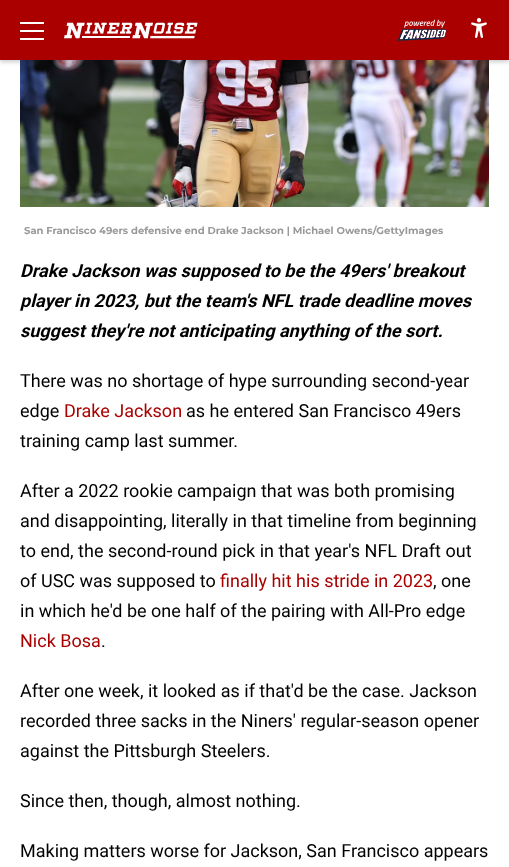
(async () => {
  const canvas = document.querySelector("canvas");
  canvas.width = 509;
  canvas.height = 867;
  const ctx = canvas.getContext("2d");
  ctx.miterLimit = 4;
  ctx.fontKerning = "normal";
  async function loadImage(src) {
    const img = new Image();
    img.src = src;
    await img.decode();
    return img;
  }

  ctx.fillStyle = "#ffffff";
  ctx.fillRect(0, 0, 509, 867);
  ctx.drawImage(await loadImage("img/4.png"), 20, 60, 469, 147);
  ctx.fillStyle = "rgba(0, 0, 0, 0.2)";
  ctx.filter = "blur(2px)";
  ctx.beginPath();
  ctx.rect(0, 2, 509, 60);
  ctx.fill();
  ctx.filter = "none";
  for (const [x, y, w, h, color] of [
    [0, 0, 509, 60, "#aa0000"],
    [20, 22, 24, 2, "#ffffff"],
    [20, 30, 24, 2, "#ffffff"],
    [20, 38, 24, 2, "#ffffff"],
  ]) {
    ctx.fillStyle = color;
    ctx.fillRect(x, y, w, h);
  }
  ctx.drawImage(await loadImage("img/1.png"), 64, 22, 134, 17);
  ctx.drawImage(await loadImage("img/2.png"), 397, 19, 50, 22);
  ctx.drawImage(await loadImage("img/3.png"), 471, 18, 16, 20);
  ctx.font = "100 10px Montserrat";
  ctx.fillStyle = "#999999";
  ctx.fillText("San Francisco 49ers defensive end Drake Jackson | Michael Owens/GettyImages", 24, 234);
  ctx.font = "italic bold 18px Roboto";
  ctx.fillStyle = "#000000";
  for (const [text, x, y] of [
    ["Drake Jackson was supposed to be the 49ers' breakout", 20, 277],
    ["player in 2023, but the team's NFL trade deadline moves", 20, 307],
    ["suggest they're not anticipating anything of the sort.", 20, 337],
  ]) {
    ctx.fillText(text, x, y);
  }
  ctx.font = "18px Roboto";
  ctx.fillText("There was no shortage of hype surrounding second-year", 20, 387);
  ctx.fillText("edge", 20, 417);
  ctx.fillStyle = "#aa0000";
  ctx.fillText("Drake Jackson", 64, 417);
  ctx.fillStyle = "#000000";
  for (const [text, x, y] of [
    ["as he entered San Francisco 49ers", 186, 417],
    ["training camp last summer.", 20, 447],
    ["After a 2022 rookie campaign that was both promising", 20, 497],
    ["and disappointing, literally in that timeline from beginning", 20, 527],
    ["to end, the second-round pick in that year's NFL Draft out", 20, 557],
    ["of USC was supposed to", 20, 587],
  ]) {
    ctx.fillText(text, x, y);
  }
  ctx.fillStyle = "#aa0000";
  ctx.fillText("finally hit his stride in 2023", 220, 587);
  ctx.fillStyle = "#000000";
  ctx.fillText(", one", 433, 587);
  ctx.fillText("in which he'd be one half of the pairing with All-Pro edge", 20, 617);
  ctx.fillStyle = "#aa0000";
  ctx.fillText("Nick Bosa", 20, 647);
  ctx.fillStyle = "#000000";
  for (const [text, x, y] of [
    [".", 101, 647],
    ["After one week, it looked as if that'd be the case. Jackson", 20, 697],
    ["recorded three sacks in the Niners' regular-season opener", 20, 727],
    ["against the Pittsburgh Steelers.", 20, 757],
    ["Since then, though, almost nothing.", 20, 807],
    ["Making matters worse for Jackson, San Francisco appears", 20, 857],
  ]) {
    ctx.fillText(text, x, y);
  }
})();
